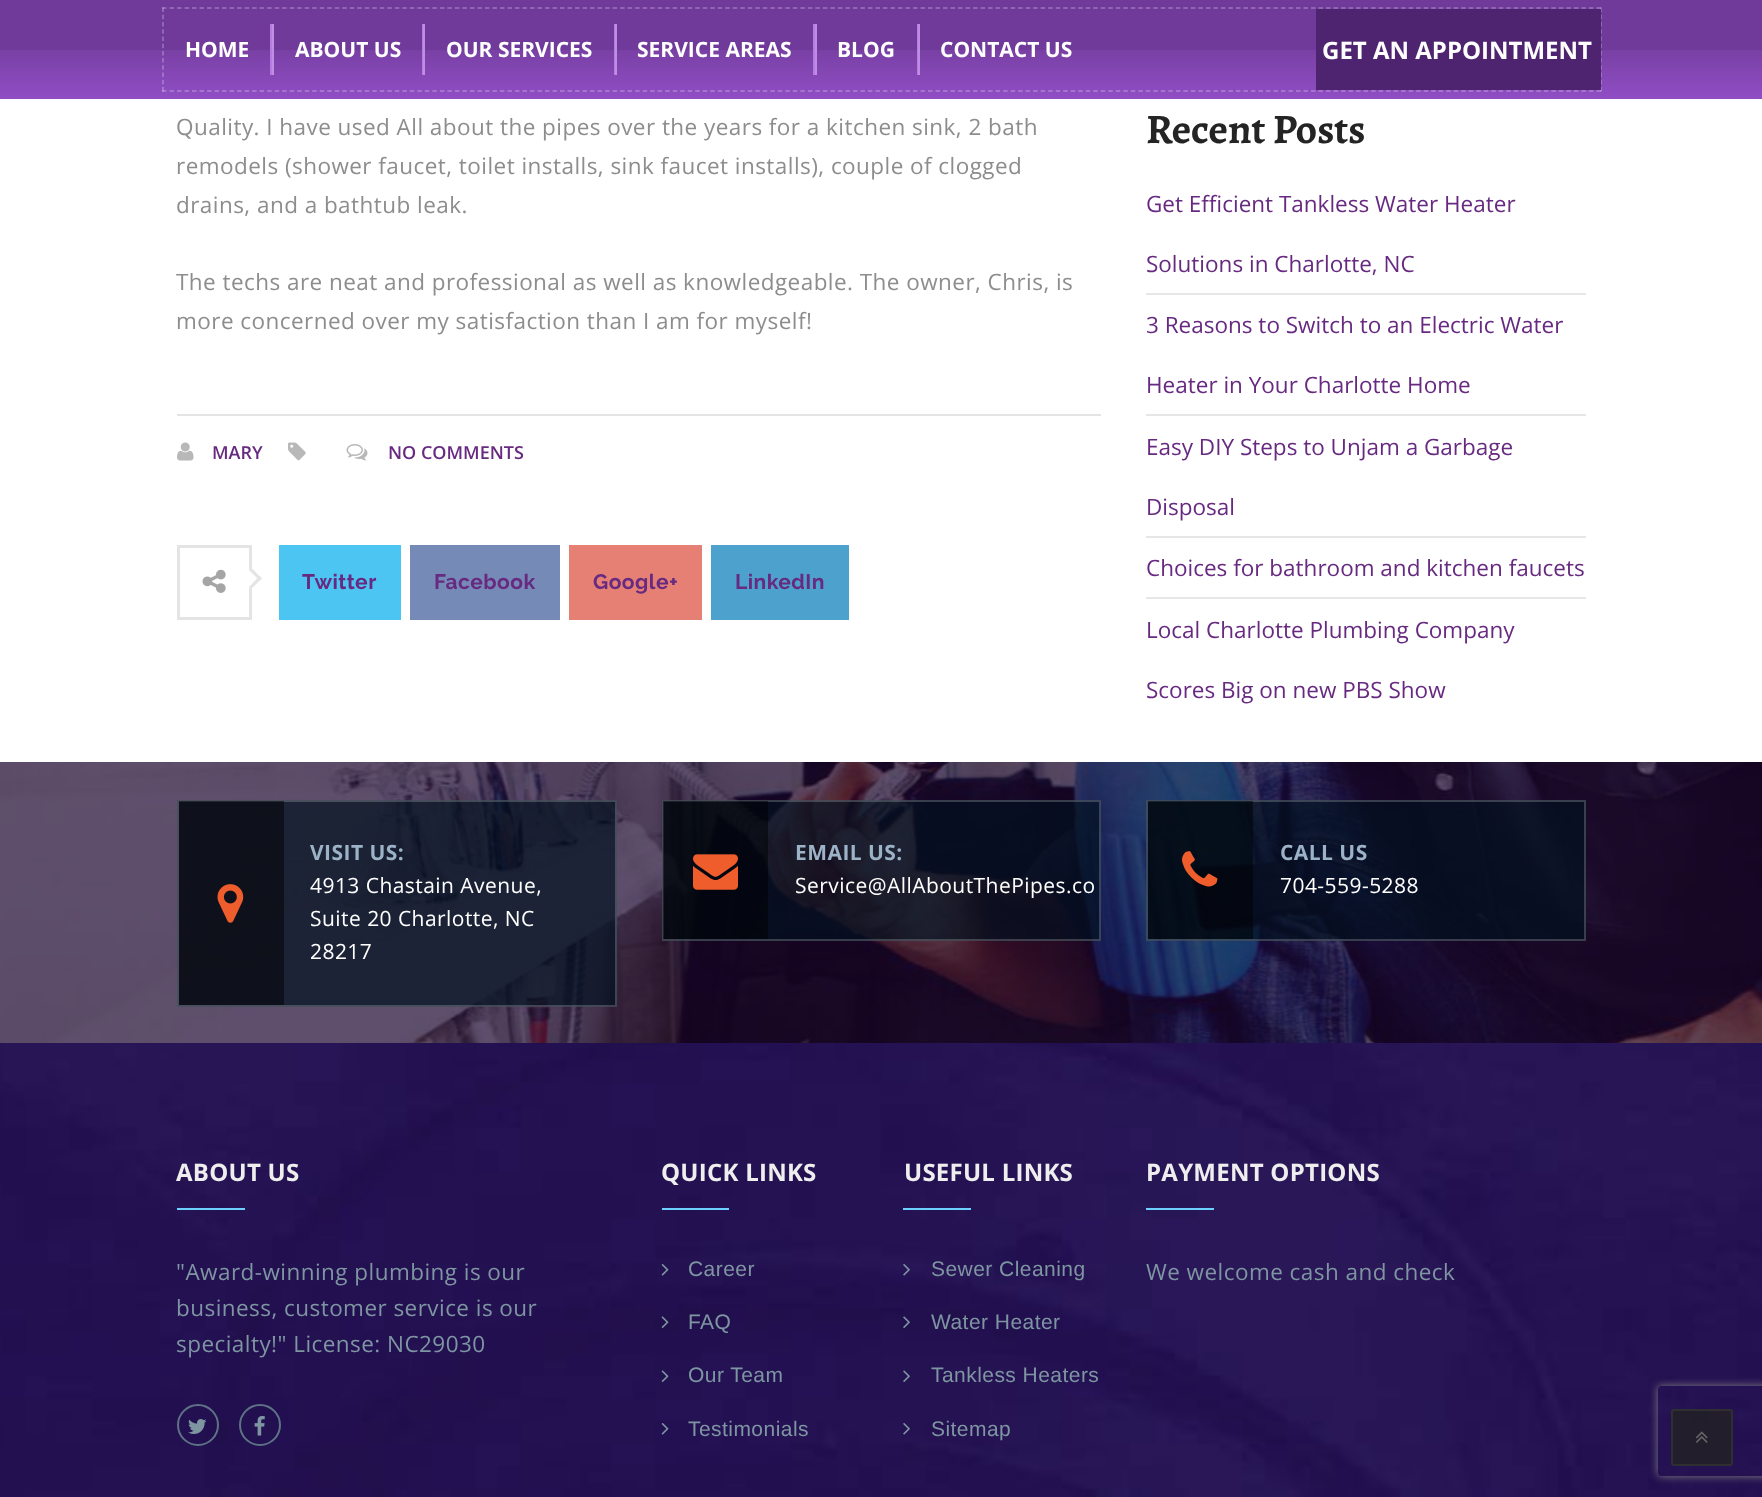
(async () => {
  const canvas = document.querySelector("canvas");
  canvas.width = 1762;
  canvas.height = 1497;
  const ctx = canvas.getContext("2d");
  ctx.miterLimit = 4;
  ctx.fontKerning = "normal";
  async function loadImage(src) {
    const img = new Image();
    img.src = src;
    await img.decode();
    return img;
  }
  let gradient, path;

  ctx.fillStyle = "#ffffff";
  ctx.fillRect(0, 0, 1762, 1497);
  gradient = ctx.createLinearGradient(881, 0, 881, 99);
  gradient.addColorStop(0, "#703a9a");
  gradient.addColorStop(0.5, "#703a9a");
  gradient.addColorStop(0.51, "#7940a5");
  gradient.addColorStop(1, "#904ec4");
  ctx.fillStyle = gradient;
  ctx.fillRect(0, 0, 1762, 99);
  path = new Path2D("M162 8H1602");
  ctx.strokeStyle = "#9b75b8";
  ctx.lineWidth = 1.5;
  ctx.setLineDash([4.5, 3.01]);
  ctx.stroke(path);
  path = new Path2D("M1601 7.5V91.5");
  ctx.strokeStyle = "rgba(255, 255, 255, 0.3)";
  ctx.setLineDash([4.5, 2.73]);
  ctx.stroke(path);
  path = new Path2D("M162 91H1602");
  ctx.setLineDash([4.5, 3.01]);
  ctx.stroke(path);
  path = new Path2D("M163 7.5V91.5");
  ctx.setLineDash([4.5, 2.73]);
  ctx.stroke(path);
  for (const [x, y, w, h, color] of [
    [270, 24, 2, 51, "#b57ce2"],
    [272, 24, 2, 51, "#be8ee4"],
    [422, 24, 1, 51, "#b57ce2"],
    [423, 24, 2, 51, "#be8ee4"],
    [614, 24, 1, 51, "#b57ce2"],
    [615, 24, 2, 51, "#be8ee4"],
    [813, 24, 2, 51, "#b57ce2"],
    [815, 24, 2, 51, "#be8ee4"],
    [917, 24, 1, 51, "#b57ce2"],
    [918, 24, 2, 51, "#be8ee4"],
    [1316, 9, 285, 81, "#4e236f"],
    [177, 414, 924, 2, "#e4e4e4"],
  ]) {
    ctx.fillStyle = color;
    ctx.fillRect(x, y, w, h);
  }
  ctx.drawImage(await loadImage("img/1.png"), 177, 442, 17, 19);
  ctx.drawImage(await loadImage("img/2.png"), 288, 442, 18, 19);
  ctx.drawImage(await loadImage("img/3.png"), 346, 444, 22, 17);
  ctx.strokeStyle = "#e4e4e4";
  ctx.lineWidth = 3;
  ctx.setLineDash([]);
  ctx.strokeRect(178.5, 546.5, 72, 72);
  ctx.drawImage(await loadImage("img/4.png"), 202, 569, 24, 24);
  ctx.fillStyle = "#ffffff";
  path = new Path2D("M251.5 568L262 578.5L251 589L240.5 578.5Z");
  ctx.fill(path);
  ctx.fillStyle = "#e4e4e4";
  path = new Path2D("M251.5 568L262 578.5L259.5 580.5L249 570Z");
  ctx.fill(path);
  path = new Path2D("M259.5 576L262 578.5L251 589L249 587Z");
  ctx.fill(path);
  for (const [x, y, w, h, color] of [
    [279, 545, 122, 75, "#4cc5f3"],
    [410, 545, 150, 75, "#758ab7"],
    [569, 545, 133, 75, "#e78074"],
    [711, 545, 138, 75, "#4ca2cc"],
    [1146, 293, 440, 2, "#e6e6e6"],
    [1146, 414, 440, 2, "#e6e6e6"],
    [1146, 536, 440, 2, "#e6e6e6"],
    [1146, 597, 440, 2, "#e6e6e6"],
  ]) {
    ctx.fillStyle = color;
    ctx.fillRect(x, y, w, h);
  }
  ctx.drawImage(await loadImage("img/5.png"), 0, 762, 1762, 281);
  ctx.fillStyle = "rgba(1, 17, 32, 0.7)";
  ctx.fillRect(177, 800, 440, 207);
  ctx.strokeStyle = "rgba(255, 255, 255, 0.2)";
  ctx.lineWidth = 2;
  ctx.strokeRect(178, 801, 438, 205);
  ctx.fillStyle = "rgba(0, 0, 0, 0.5)";
  ctx.fillRect(179, 801, 105, 204);
  ctx.drawImage(await loadImage("img/6.png"), 217, 884, 27, 39);
  ctx.fillStyle = "rgba(1, 17, 32, 0.7)";
  ctx.fillRect(662, 800, 439, 141);
  ctx.strokeRect(663, 801, 437, 139);
  ctx.fillStyle = "rgba(0, 0, 0, 0.5)";
  ctx.fillRect(663, 801, 105, 138);
  ctx.drawImage(await loadImage("img/7.png"), 693, 854, 45, 36);
  ctx.fillStyle = "rgba(1, 17, 32, 0.7)";
  ctx.fillRect(1146, 800, 440, 141);
  ctx.strokeRect(1147, 801, 438, 139);
  ctx.fillStyle = "rgba(0, 0, 0, 0.5)";
  ctx.fillRect(1148, 801, 105, 138);
  ctx.drawImage(await loadImage("img/8.png"), 1182, 851, 36, 36);
  ctx.drawImage(await loadImage("img/9.png"), 0, 1043, 1762, 454);
  ctx.fillStyle = "#6dd1ff";
  ctx.fillRect(177, 1208, 68, 2);
  ctx.beginPath();
  ctx.arc(198, 1425, 20, 0, Math.PI * 2);
  ctx.strokeStyle = "#5e7285";
  ctx.stroke();
  ctx.drawImage(await loadImage("img/10.png"), 188, 1419, 19, 15);
  ctx.beginPath();
  ctx.arc(260, 1425, 20, 0, Math.PI * 2);
  ctx.stroke();
  ctx.drawImage(await loadImage("img/11.png"), 254, 1416, 11, 20);
  ctx.fillRect(662, 1208, 67, 2);
  ctx.drawImage(await loadImage("img/12.png"), 661, 1264, 8, 12);
  ctx.drawImage(await loadImage("img/13.png"), 661, 1316, 8, 12);
  ctx.drawImage(await loadImage("img/14.png"), 661, 1370, 8, 12);
  ctx.drawImage(await loadImage("img/15.png"), 661, 1423, 8, 12);
  ctx.fillRect(903, 1208, 68, 2);
  ctx.drawImage(await loadImage("img/16.png"), 903, 1264, 7, 12);
  ctx.drawImage(await loadImage("img/17.png"), 903, 1316, 7, 12);
  ctx.drawImage(await loadImage("img/18.png"), 903, 1370, 7, 12);
  ctx.drawImage(await loadImage("img/19.png"), 903, 1423, 7, 12);
  ctx.fillRect(1146, 1208, 68, 2);
  ctx.save();
  path = new Path2D("M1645 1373H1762V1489H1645ZM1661 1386H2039C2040.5 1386 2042 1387.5 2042 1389V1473C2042 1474.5 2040.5 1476 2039 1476H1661C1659.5 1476 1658 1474.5 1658 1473V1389C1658 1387.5 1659.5 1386 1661 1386Z");
  ctx.clip(path, "evenodd");
  ctx.fillStyle = "#808080";
  ctx.filter = "blur(4px)";
  ctx.beginPath();
  ctx.roundRect(1658, 1386, 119, 90, 3);
  ctx.fill();
  ctx.filter = "none";
  ctx.restore();
  ctx.fillStyle = "rgba(34, 34, 34, 0.8)";
  ctx.beginPath();
  ctx.roundRect(1671, 1409, 62, 57, 3);
  ctx.fill();
  ctx.beginPath();
  ctx.roundRect(1672, 1410, 60, 55, 2);
  ctx.strokeStyle = "rgba(51, 51, 51, 0.8)";
  ctx.stroke();
  ctx.drawImage(await loadImage("img/20.png"), 1696, 1431, 12, 12);
  ctx.font = "bold 21px Open Sans";
  ctx.fillStyle = "#ffffff";
  for (const [text, x, y] of [
    ["HOME", 185, 57],
    ["ABOUT US", 295, 57],
    ["OUR SERVICES", 446, 57],
    ["SERVICE AREAS", 637, 57],
    ["BLOG", 837, 57],
    ["CONTACT US", 940, 57],
  ]) {
    ctx.fillText(text, x, y);
  }
  ctx.font = "bold 24px Open Sans";
  ctx.fillText("GET AN APPOINTMENT", 1322, 59);
  ctx.letterSpacing = "0.45px";
  ctx.font = "22.5px Open Sans";
  ctx.fillStyle = "#8e8d8d";
  for (const [text, x, y] of [
    ["Quality. I have used All about the pipes over the years for a kitchen sink, 2 bath", 176, 135],
    ["remodels (shower faucet, toilet installs, sink faucet installs), couple of clogged", 176, 174],
    ["drains, and a bathtub leak.", 176, 213],
    ["The techs are neat and professional as well as knowledgeable. The owner, Chris, is", 176, 290],
    ["more concerned over my satisfaction than I am for myself!", 176, 329],
  ]) {
    ctx.fillText(text, x, y);
  }
  ctx.letterSpacing = "0px";
  ctx.font = "600 18px Open Sans";
  ctx.fillStyle = "#672a80";
  ctx.fillText("MARY", 212, 459);
  ctx.fillText("NO COMMENTS", 388, 459);
  ctx.letterSpacing = "0.45px";
  ctx.font = "bold 21px Raleway";
  for (const [text, x, y] of [
    ["Twitter", 302, 589],
    ["Facebook", 434, 589],
    ["Google+", 593, 589],
    ["LinkedIn", 735, 589],
  ]) {
    ctx.fillText(text, x, y);
  }
  ctx.letterSpacing = "0px";
  ctx.font = "bold 42px Alegreya";
  ctx.fillStyle = "#242424";
  ctx.fillText("Recent Posts", 1146, 143);
  ctx.font = "22.5px Open Sans";
  ctx.fillStyle = "#672a80";
  for (const [text, x, y] of [
    ["Get Efficient Tankless Water Heater", 1146, 212],
    ["Solutions in Charlotte, NC", 1146, 272],
    ["3 Reasons to Switch to an Electric Water", 1146, 333],
    ["Heater in Your Charlotte Home", 1146, 393],
    ["Easy DIY Steps to Unjam a Garbage", 1146, 455],
    ["Disposal", 1146, 515],
    ["Choices for bathroom and kitchen faucets", 1146, 576],
    ["Local Charlotte Plumbing Company", 1146, 638],
    ["Scores Big on new PBS Show", 1146, 698],
  ]) {
    ctx.fillText(text, x, y);
  }
  ctx.letterSpacing = "0.45px";
  ctx.font = "bold 21px Open Sans";
  ctx.fillStyle = "#9bb2c7";
  ctx.fillText("VISIT US:", 310, 860);
  ctx.font = "21px Open Sans";
  ctx.fillStyle = "#ffffff";
  for (const [text, x, y] of [
    ["4913 Chastain Avenue,", 310, 893],
    ["Suite 20 Charlotte, NC", 310, 926],
    ["28217", 310, 959],
  ]) {
    ctx.fillText(text, x, y);
  }
  ctx.font = "bold 21px Open Sans";
  ctx.fillStyle = "#9bb2c7";
  ctx.fillText("EMAIL US:", 795, 860);
  ctx.font = "21px Open Sans";
  ctx.fillStyle = "#ffffff";
  ctx.fillText("Service@AllAboutThePipes.co", 795, 893);
  ctx.font = "bold 21px Open Sans";
  ctx.fillStyle = "#9bb2c7";
  ctx.fillText("CALL US", 1280, 860);
  ctx.font = "21px Open Sans";
  ctx.fillStyle = "#ffffff";
  ctx.fillText("704-559-5288", 1280, 893);
  ctx.letterSpacing = "0.25px";
  ctx.font = "bold 24px Open Sans";
  ctx.fillStyle = "#eeeeee";
  ctx.fillText("ABOUT US", 176, 1181);
  ctx.letterSpacing = "0.45px";
  ctx.font = "22.5px Open Sans";
  ctx.fillStyle = "#7e95a2";
  for (const [text, x, y] of [
    ["\"Award-winning plumbing is our", 176, 1280],
    ["business, customer service is our", 176, 1316],
    ["specialty!\" License: NC29030", 176, 1352],
  ]) {
    ctx.fillText(text, x, y);
  }
  ctx.letterSpacing = "0.25px";
  ctx.font = "bold 24px Open Sans";
  ctx.fillStyle = "#eeeeee";
  ctx.fillText("QUICK LINKS", 661, 1181);
  ctx.letterSpacing = "0.45px";
  ctx.font = "21px Liberation Sans";
  ctx.fillStyle = "#7e95a2";
  for (const [text, x, y] of [
    ["Career", 688, 1276],
    ["FAQ", 688, 1329],
    ["Our Team", 688, 1382],
    ["Testimonials", 688, 1436],
  ]) {
    ctx.fillText(text, x, y);
  }
  ctx.letterSpacing = "0.25px";
  ctx.font = "bold 24px Open Sans";
  ctx.fillStyle = "#eeeeee";
  ctx.fillText("USEFUL LINKS", 904, 1181);
  ctx.letterSpacing = "0.45px";
  ctx.font = "21px Liberation Sans";
  ctx.fillStyle = "#7e95a2";
  for (const [text, x, y] of [
    ["Sewer Cleaning", 931, 1276],
    ["Water Heater", 931, 1329],
    ["Tankless Heaters", 931, 1382],
    ["Sitemap", 931, 1436],
  ]) {
    ctx.fillText(text, x, y);
  }
  ctx.letterSpacing = "0.25px";
  ctx.font = "bold 24px Open Sans";
  ctx.fillStyle = "#eeeeee";
  ctx.fillText("PAYMENT OPTIONS", 1146, 1181);
  ctx.letterSpacing = "0.45px";
  ctx.font = "22.5px Open Sans";
  ctx.fillStyle = "#7e95a2";
  ctx.fillText("We welcome cash and check", 1146, 1280);
})();
